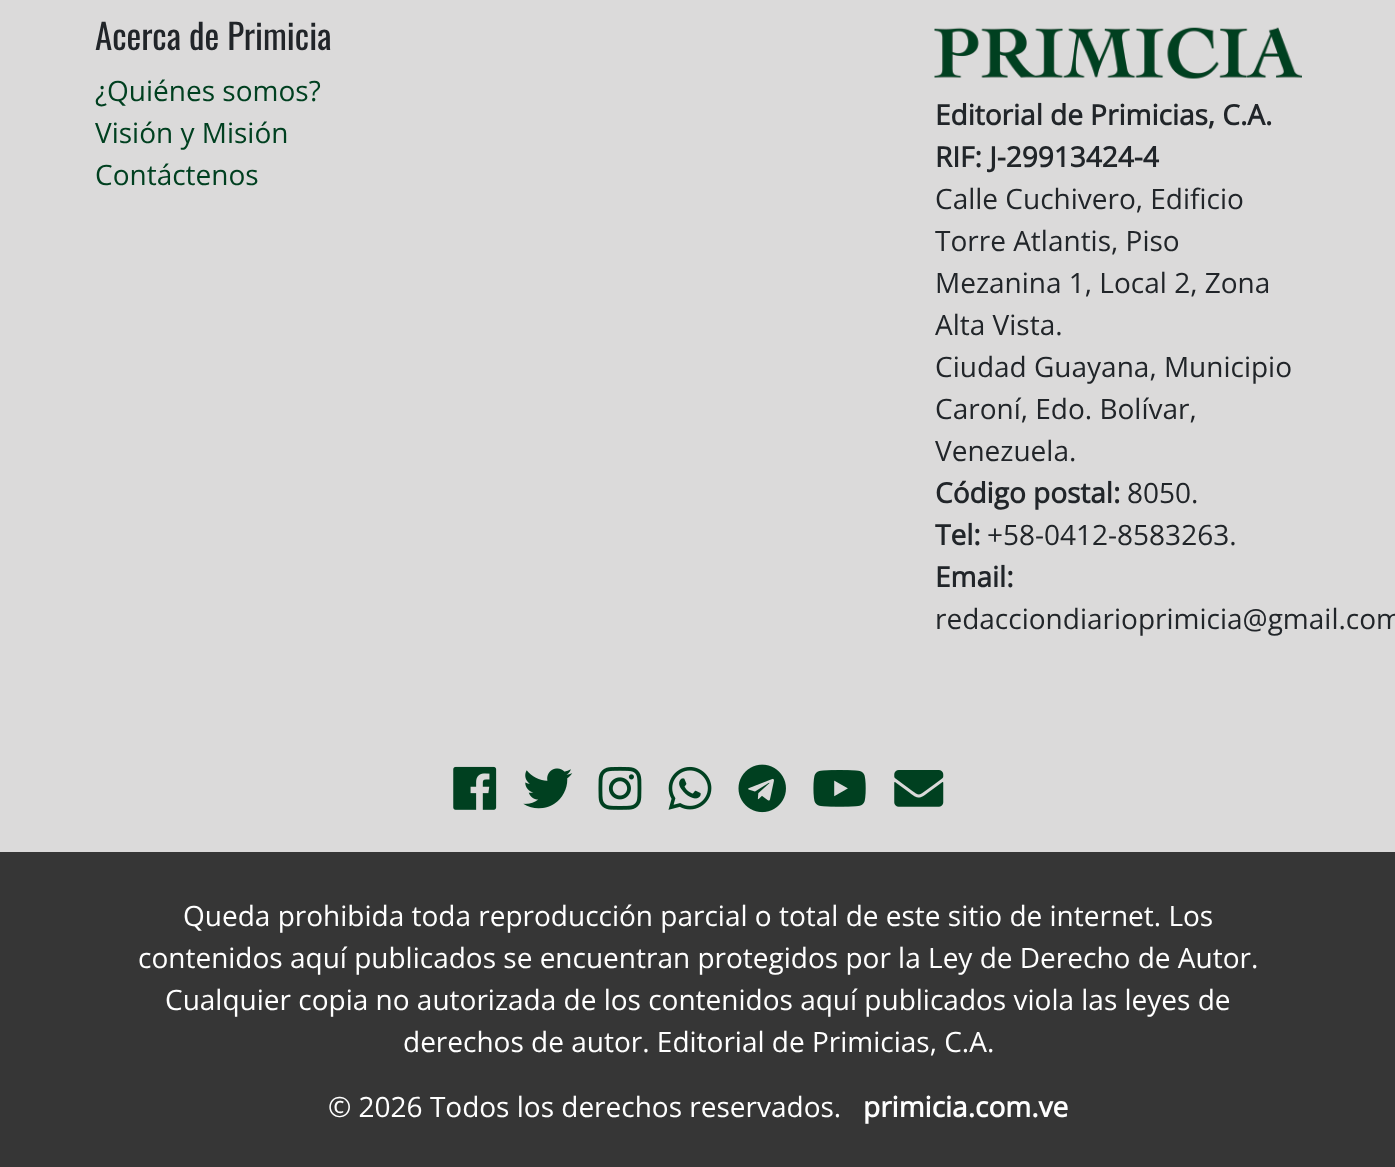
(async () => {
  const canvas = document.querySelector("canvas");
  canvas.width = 1395;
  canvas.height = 1167;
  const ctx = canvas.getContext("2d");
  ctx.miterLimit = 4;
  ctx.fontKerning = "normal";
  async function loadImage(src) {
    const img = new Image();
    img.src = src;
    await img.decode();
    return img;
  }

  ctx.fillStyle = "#dbdada";
  ctx.fillRect(0, 0, 1395, 1167);
  ctx.drawImage(await loadImage("img/1.png"), 934, 27, 368, 52);
  ctx.drawImage(await loadImage("img/2.png"), 453, 766, 44, 44);
  ctx.drawImage(await loadImage("img/3.png"), 523, 768, 50, 41);
  ctx.drawImage(await loadImage("img/4.png"), 598, 766, 44, 44);
  ctx.drawImage(await loadImage("img/5.png"), 668, 766, 44, 44);
  ctx.drawImage(await loadImage("img/6.png"), 738, 764, 48, 49);
  ctx.drawImage(await loadImage("img/7.png"), 813, 770, 53, 37);
  ctx.drawImage(await loadImage("img/8.png"), 894, 770, 50, 37);
  ctx.fillStyle = "#363636";
  ctx.fillRect(0, 852, 1395, 315);
  ctx.font = "35px Oswald";
  ctx.fillStyle = "#212529";
  ctx.fillText("Acerca de Primicia", 95, 50);
  ctx.font = "28px Open Sans";
  ctx.fillStyle = "#004020";
  for (const [text, x, y] of [
    ["¿Quiénes somos?", 95, 101],
    ["Visión y Misión", 95, 143],
    ["Contáctenos", 95, 185],
  ]) {
    ctx.fillText(text, x, y);
  }
  ctx.font = "bold 28px Open Sans";
  ctx.fillStyle = "#212529";
  ctx.fillText("Editorial de Primicias, C.A.", 935, 125);
  ctx.fillText("RIF: J-29913424-4", 935, 167);
  ctx.font = "28px Open Sans";
  for (const [text, x, y] of [
    ["Calle Cuchivero, Edificio", 935, 209],
    ["Torre Atlantis, Piso", 935, 251],
    ["Mezanina 1, Local 2, Zona", 935, 293],
    ["Alta Vista.", 935, 335],
    ["Ciudad Guayana, Municipio", 935, 377],
    ["Caroní, Edo. Bolívar,", 935, 419],
    ["Venezuela.", 935, 461],
  ]) {
    ctx.fillText(text, x, y);
  }
  ctx.font = "bold 28px Open Sans";
  ctx.fillText("Código postal:", 935, 503);
  ctx.font = "28px Open Sans";
  ctx.fillText("8050.", 1127, 503);
  ctx.font = "bold 28px Open Sans";
  ctx.fillText("Tel:", 935, 545);
  ctx.font = "28px Open Sans";
  ctx.fillText("+58-0412-8583263.", 987, 545);
  ctx.font = "bold 28px Open Sans";
  ctx.fillText("Email:", 935, 587);
  ctx.font = "28px Open Sans";
  ctx.fillText("redacciondiarioprimicia@gmail.com", 935, 629);
  ctx.fillStyle = "#ffffff";
  for (const [text, x, y] of [
    ["Queda prohibida toda reproducción parcial o total de este sitio de internet. Los", 183, 926],
    ["contenidos aquí publicados se encuentran protegidos por la Ley de Derecho de Autor.", 138, 968],
    ["Cualquier copia no autorizada de los contenidos aquí publicados viola las leyes de", 165, 1010],
    ["derechos de autor. Editorial de Primicias, C.A.", 403, 1052],
    ["© 2026 Todos los derechos reservados.", 328, 1117],
  ]) {
    ctx.fillText(text, x, y);
  }
  ctx.font = "bold 28px Open Sans";
  ctx.fillText("primicia.com.ve", 863, 1117);
})();
